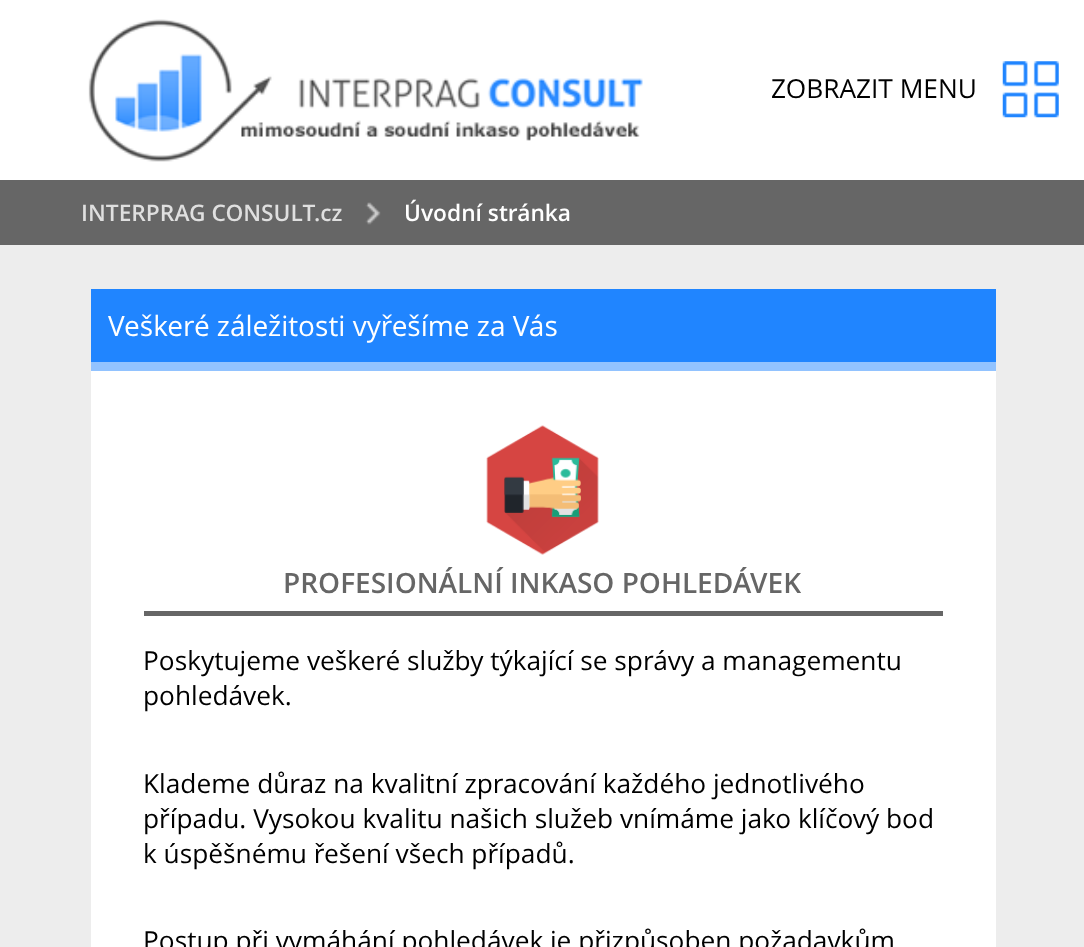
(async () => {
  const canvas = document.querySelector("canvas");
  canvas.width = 1084;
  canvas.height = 947;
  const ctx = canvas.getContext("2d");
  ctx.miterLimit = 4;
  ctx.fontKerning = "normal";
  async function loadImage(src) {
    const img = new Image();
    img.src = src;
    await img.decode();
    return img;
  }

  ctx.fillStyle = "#ededed";
  ctx.fillRect(0, 0, 1084, 947);
  ctx.fillStyle = "#ffffff";
  ctx.fillRect(0, 0, 1084, 180);
  ctx.drawImage(await loadImage("img/1.png"), 88, 19, 555, 143);
  ctx.drawImage(await loadImage("img/2.png"), 1002, 61, 57, 57);
  ctx.fillStyle = "#666666";
  ctx.fillRect(0, 180, 1084, 65);
  ctx.drawImage(await loadImage("img/3.png"), 365, 202, 16, 23);
  for (const [x, y, w, h, color] of [
    [91, 371, 905, 576, "#ffffff"],
    [91, 289, 905, 73, "#2085ff"],
    [91, 362, 905, 9, "#92c3ff"],
  ]) {
    ctx.fillStyle = color;
    ctx.fillRect(x, y, w, h);
  }
  ctx.drawImage(await loadImage("img/4.png"), 486, 425, 113, 130);
  ctx.fillStyle = "#666666";
  ctx.fillRect(144, 611, 799, 5);
  ctx.font = "26.25px Open Sans";
  ctx.fillStyle = "#000000";
  ctx.fillText("ZOBRAZIT MENU", 771, 98);
  ctx.font = "600 22.75px Open Sans";
  ctx.fillStyle = "#dfdfdf";
  ctx.fillText("INTERPRAG CONSULT.cz", 81, 221);
  ctx.fillStyle = "#ffffff";
  ctx.fillText("Úvodní stránka", 404, 221);
  ctx.font = "28px Open Sans";
  ctx.fillText("Veškeré záležitosti vyřešíme za Vás", 108, 336);
  ctx.font = "600 28px Open Sans";
  ctx.fillStyle = "#666666";
  ctx.fillText("PROFESIONÁLNÍ INKASO POHLEDÁVEK", 283, 593);
  ctx.font = "26.25px Open Sans";
  ctx.fillStyle = "#000000";
  for (const [text, x, y] of [
    ["Poskytujeme veškeré služby týkající se správy a managementu", 143, 670],
    ["pohledávek.", 143, 705],
    ["Klademe důraz na kvalitní zpracování každého jednotlivého", 143, 793],
    ["případu. Vysokou kvalitu našich služeb vnímáme jako klíčový bod", 143, 828],
    ["k úspěšnému řešení všech případů.", 143, 863],
    ["Postup při vymáhání pohledávek je přizpůsoben požadavkům", 143, 950],
  ]) {
    ctx.fillText(text, x, y);
  }
})();
